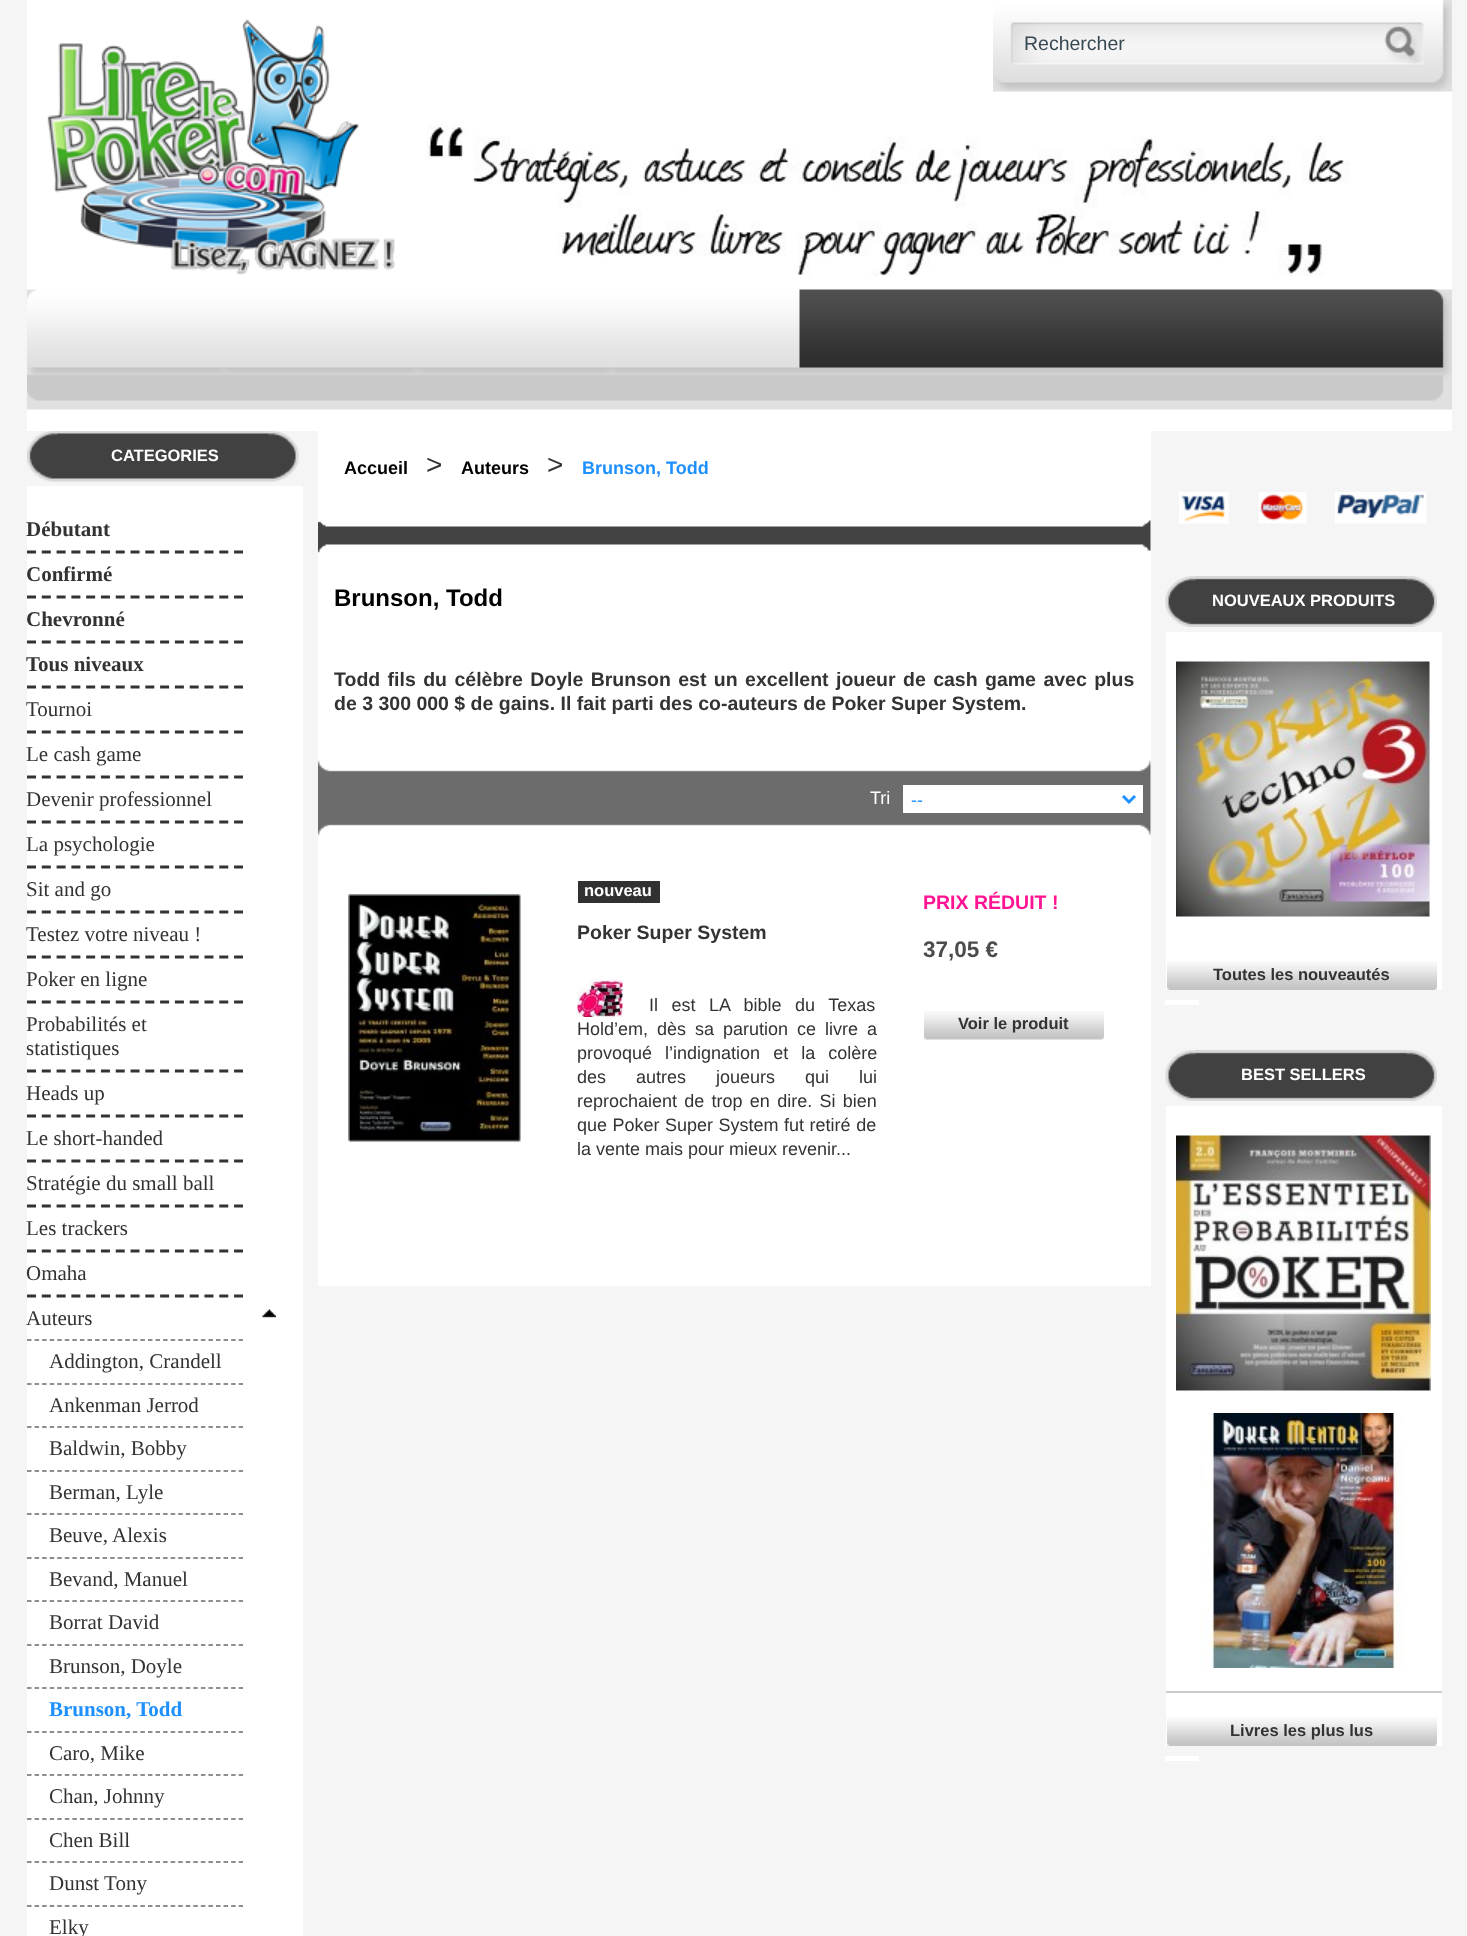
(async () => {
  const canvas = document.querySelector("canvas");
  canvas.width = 1467;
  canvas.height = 1936;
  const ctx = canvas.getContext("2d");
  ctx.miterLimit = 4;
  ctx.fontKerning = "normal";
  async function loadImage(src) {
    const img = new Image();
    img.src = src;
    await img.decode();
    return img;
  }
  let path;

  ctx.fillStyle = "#f5f5f5";
  ctx.fillRect(0, 0, 1467, 1936);
  ctx.fillStyle = "#ffffff";
  ctx.fillRect(27, 0, 1425, 431);
  ctx.drawImage(await loadImage("img/1.png"), 27, 289, 1425, 121);
  ctx.drawImage(await loadImage("img/2.png"), 47, 19, 348, 256);
  ctx.drawImage(await loadImage("img/3.png"), 993, 0, 459, 92);
  ctx.drawImage(await loadImage("img/4.png"), 426, 124, 924, 152);
  ctx.drawImage(await loadImage("img/5.png"), 27, 431, 272, 51);
  ctx.fillRect(27, 486, 276, 1450);
  path = new Path2D("M27 552H243");
  ctx.strokeStyle = "#333333";
  ctx.lineWidth = 3;
  ctx.setLineDash([9, 5.79]);
  ctx.stroke(path);
  path = new Path2D("M27 597H243");
  ctx.stroke(path);
  path = new Path2D("M27 642H243");
  ctx.stroke(path);
  path = new Path2D("M27 687H243");
  ctx.stroke(path);
  path = new Path2D("M27 732H243");
  ctx.stroke(path);
  path = new Path2D("M27 777H243");
  ctx.stroke(path);
  path = new Path2D("M27 822H243");
  ctx.stroke(path);
  path = new Path2D("M27 867H243");
  ctx.stroke(path);
  path = new Path2D("M27 912H243");
  ctx.stroke(path);
  path = new Path2D("M27 957H243");
  ctx.stroke(path);
  path = new Path2D("M27 1002H243");
  ctx.stroke(path);
  path = new Path2D("M27 1071H243");
  ctx.stroke(path);
  path = new Path2D("M27 1116H243");
  ctx.stroke(path);
  path = new Path2D("M27 1161H243");
  ctx.stroke(path);
  path = new Path2D("M27 1206H243");
  ctx.stroke(path);
  path = new Path2D("M27 1251H243");
  ctx.stroke(path);
  path = new Path2D("M27 1296H243");
  ctx.stroke(path);
  ctx.drawImage(await loadImage("img/6.png"), 262, 1309, 14, 9);
  path = new Path2D("M27 1340H243");
  ctx.strokeStyle = "#696969";
  ctx.lineWidth = 1.5;
  ctx.setLineDash([4.5, 3.06]);
  ctx.stroke(path);
  path = new Path2D("M27 1384H243");
  ctx.stroke(path);
  path = new Path2D("M27 1427H243");
  ctx.stroke(path);
  path = new Path2D("M27 1471H243");
  ctx.stroke(path);
  path = new Path2D("M27 1514H243");
  ctx.stroke(path);
  path = new Path2D("M27 1558H243");
  ctx.stroke(path);
  path = new Path2D("M27 1601H243");
  ctx.stroke(path);
  path = new Path2D("M27 1645H243");
  ctx.stroke(path);
  path = new Path2D("M27 1688H243");
  ctx.stroke(path);
  path = new Path2D("M27 1732H243");
  ctx.stroke(path);
  path = new Path2D("M27 1775H243");
  ctx.stroke(path);
  path = new Path2D("M27 1819H243");
  ctx.stroke(path);
  path = new Path2D("M27 1862H243");
  ctx.stroke(path);
  path = new Path2D("M27 1906H243");
  ctx.stroke(path);
  ctx.fillRect(318, 431, 833, 855);
  ctx.drawImage(await loadImage("img/7.png"), 318, 520, 833, 33);
  ctx.drawImage(await loadImage("img/8.png"), 318, 760, 833, 76);
  ctx.fillRect(903, 785, 240, 28);
  path = new Path2D("M1123 796L1129 802L1135 796");
  ctx.strokeStyle = "#1e90ff";
  ctx.lineWidth = 3;
  ctx.setLineDash([]);
  ctx.stroke(path);
  ctx.drawImage(await loadImage("img/9.png"), 348, 894, 173, 248);
  ctx.fillStyle = "#313131";
  ctx.fillRect(578, 881, 82, 22);
  ctx.drawImage(await loadImage("img/10.png"), 577, 979, 46, 38);
  ctx.drawImage(await loadImage("img/11.png"), 924, 1011, 180, 29);
  ctx.drawImage(await loadImage("img/12.png"), 1179, 492, 50, 32);
  ctx.drawImage(await loadImage("img/13.png"), 1258, 492, 49, 32);
  ctx.drawImage(await loadImage("img/14.png"), 1335, 492, 92, 32);
  ctx.fillStyle = "#ffffff";
  ctx.fillRect(1165, 1000, 34, 5);
  ctx.drawImage(await loadImage("img/15.png"), 1165, 576, 272, 51);
  ctx.fillRect(1166, 632, 276, 358);
  ctx.drawImage(await loadImage("img/16.png"), 1176, 661, 255, 256);
  ctx.drawImage(await loadImage("img/17.png"), 1167, 961, 270, 29);
  ctx.fillRect(1165, 1756, 34, 5);
  ctx.drawImage(await loadImage("img/15.png"), 1165, 1050, 272, 51);
  ctx.fillRect(1166, 1106, 276, 640);
  ctx.drawImage(await loadImage("img/18.png"), 1176, 1135, 255, 256);
  ctx.drawImage(await loadImage("img/19.png"), 1200, 1413, 206, 255);
  ctx.fillStyle = "#cccccc";
  ctx.fillRect(1166, 1691, 276, 2);
  ctx.drawImage(await loadImage("img/17.png"), 1167, 1717, 270, 29);
  ctx.font = "19.5px Liberation Sans";
  ctx.fillStyle = "#374853";
  ctx.fillText("Rechercher", 1024, 50);
  ctx.font = "bold 16.5px Liberation Sans";
  ctx.fillStyle = "#ffffff";
  ctx.fillText("CATEGORIES", 111, 461);
  ctx.font = "bold 21px Liberation Serif";
  ctx.fillStyle = "#333333";
  for (const [text, x, y] of [
    ["Débutant", 26, 536],
    ["Confirmé", 26, 581],
    ["Chevronné", 26, 626],
    ["Tous niveaux", 26, 671],
  ]) {
    ctx.fillText(text, x, y);
  }
  ctx.font = "21px Liberation Serif";
  for (const [text, x, y] of [
    ["Tournoi", 26, 716],
    ["Le cash game", 26, 761],
    ["Devenir professionnel", 26, 806],
    ["La psychologie", 26, 851],
    ["Sit and go", 26, 896],
    ["Testez votre niveau !", 26, 941],
    ["Poker en ligne", 26, 986],
    ["Probabilités et", 26, 1031],
    ["statistiques", 26, 1055],
    ["Heads up", 26, 1100],
    ["Le short-handed", 26, 1145],
    ["Stratégie du small ball", 26, 1190],
    ["Les trackers", 26, 1235],
    ["Omaha", 26, 1280],
    ["Auteurs", 26, 1325],
    ["Addington, Crandell", 49, 1368],
    ["Ankenman Jerrod", 49, 1412],
    ["Baldwin, Bobby", 49, 1455],
    ["Berman, Lyle", 49, 1499],
    ["Beuve, Alexis", 49, 1542],
    ["Bevand, Manuel", 49, 1586],
    ["Borrat David", 49, 1629],
    ["Brunson, Doyle", 49, 1673],
  ]) {
    ctx.fillText(text, x, y);
  }
  ctx.font = "bold 21px Liberation Serif";
  ctx.fillStyle = "#1e90ff";
  ctx.fillText("Brunson, Todd", 49, 1716);
  ctx.font = "21px Liberation Serif";
  ctx.fillStyle = "#333333";
  for (const [text, x, y] of [
    ["Caro, Mike", 49, 1760],
    ["Chan, Johnny", 49, 1803],
    ["Chen Bill", 49, 1847],
    ["Dunst Tony", 49, 1890],
    ["Elky", 49, 1934],
  ]) {
    ctx.fillText(text, x, y);
  }
  ctx.font = "bold 18px Liberation Sans";
  ctx.fillStyle = "#000000";
  ctx.fillText("Accueil", 344, 474);
  ctx.font = "28px Liberation Sans";
  ctx.fillStyle = "#333333";
  ctx.fillText(">", 426, 474);
  ctx.font = "bold 18px Liberation Sans";
  ctx.fillStyle = "#000000";
  ctx.fillText("Auteurs", 461, 474);
  ctx.font = "28px Liberation Sans";
  ctx.fillStyle = "#333333";
  ctx.fillText(">", 547, 474);
  ctx.font = "bold 18px Liberation Sans";
  ctx.fillStyle = "#1e90ff";
  ctx.fillText("Brunson, Todd", 582, 474);
  ctx.font = "bold 24px Liberation Sans";
  ctx.fillStyle = "#000000";
  ctx.fillText("Brunson, Todd", 334, 606);
  ctx.wordSpacing = "2px";
  ctx.font = "bold 19.5px Liberation Sans";
  ctx.fillStyle = "#333333";
  ctx.fillText("Todd fils du célèbre Doyle Brunson est un excellent joueur de cash game avec plus", 334, 686);
  ctx.wordSpacing = "0px";
  ctx.fillText("de 3 300 000 $ de gains. Il fait parti des co-auteurs de Poker Super System.", 334, 710);
  ctx.font = "18px Liberation Sans";
  ctx.fillStyle = "#ffffff";
  ctx.fillText("Tri", 870, 804);
  ctx.fillStyle = "#1e90ff";
  ctx.fillText("--", 911, 806);
  ctx.font = "bold 16.5px Liberation Sans";
  ctx.fillStyle = "#ffffff";
  ctx.fillText("nouveau", 584, 896);
  ctx.font = "bold 19.5px Liberation Sans";
  ctx.fillStyle = "#333333";
  ctx.fillText("Poker Super System", 577, 939);
  ctx.wordSpacing = "8.5px";
  ctx.font = "18px Liberation Sans";
  ctx.fillText("Il est LA bible du Texas", 649, 1011);
  ctx.wordSpacing = "4px";
  ctx.fillText("Hold’em, dès sa parution ce livre a", 577, 1035);
  ctx.wordSpacing = "8px";
  ctx.fillText("provoqué l’indignation et la colère", 577, 1059);
  ctx.wordSpacing = "25px";
  ctx.fillText("des autres joueurs qui lui", 577, 1083);
  ctx.wordSpacing = "2.25px";
  ctx.fillText("reprochaient de trop en dire. Si bien", 577, 1107);
  ctx.wordSpacing = "0.5px";
  ctx.fillText("que Poker Super System fut retiré de", 577, 1131);
  ctx.wordSpacing = "0px";
  ctx.fillText("la vente mais pour mieux revenir...", 577, 1155);
  ctx.font = "bold 19.5px Liberation Sans";
  ctx.fillStyle = "#ff1493";
  ctx.fillText("PRIX RÉDUIT !", 923, 909);
  ctx.font = "bold 22.5px Liberation Sans";
  ctx.fillStyle = "#4d4c4c";
  ctx.fillText("37,05 €", 923, 957);
  ctx.font = "bold 16.5px Liberation Sans";
  ctx.fillStyle = "#333333";
  ctx.fillText("Voir le produit", 958, 1029);
  ctx.fillStyle = "#ffffff";
  ctx.fillText("NOUVEAUX PRODUITS", 1212, 606);
  ctx.fillStyle = "#333333";
  ctx.fillText("Toutes les nouveautés", 1213, 980);
  ctx.fillStyle = "#ffffff";
  ctx.fillText("BEST SELLERS", 1241, 1080);
  ctx.fillStyle = "#333333";
  ctx.fillText("Livres les plus lus", 1230, 1736);
})();
